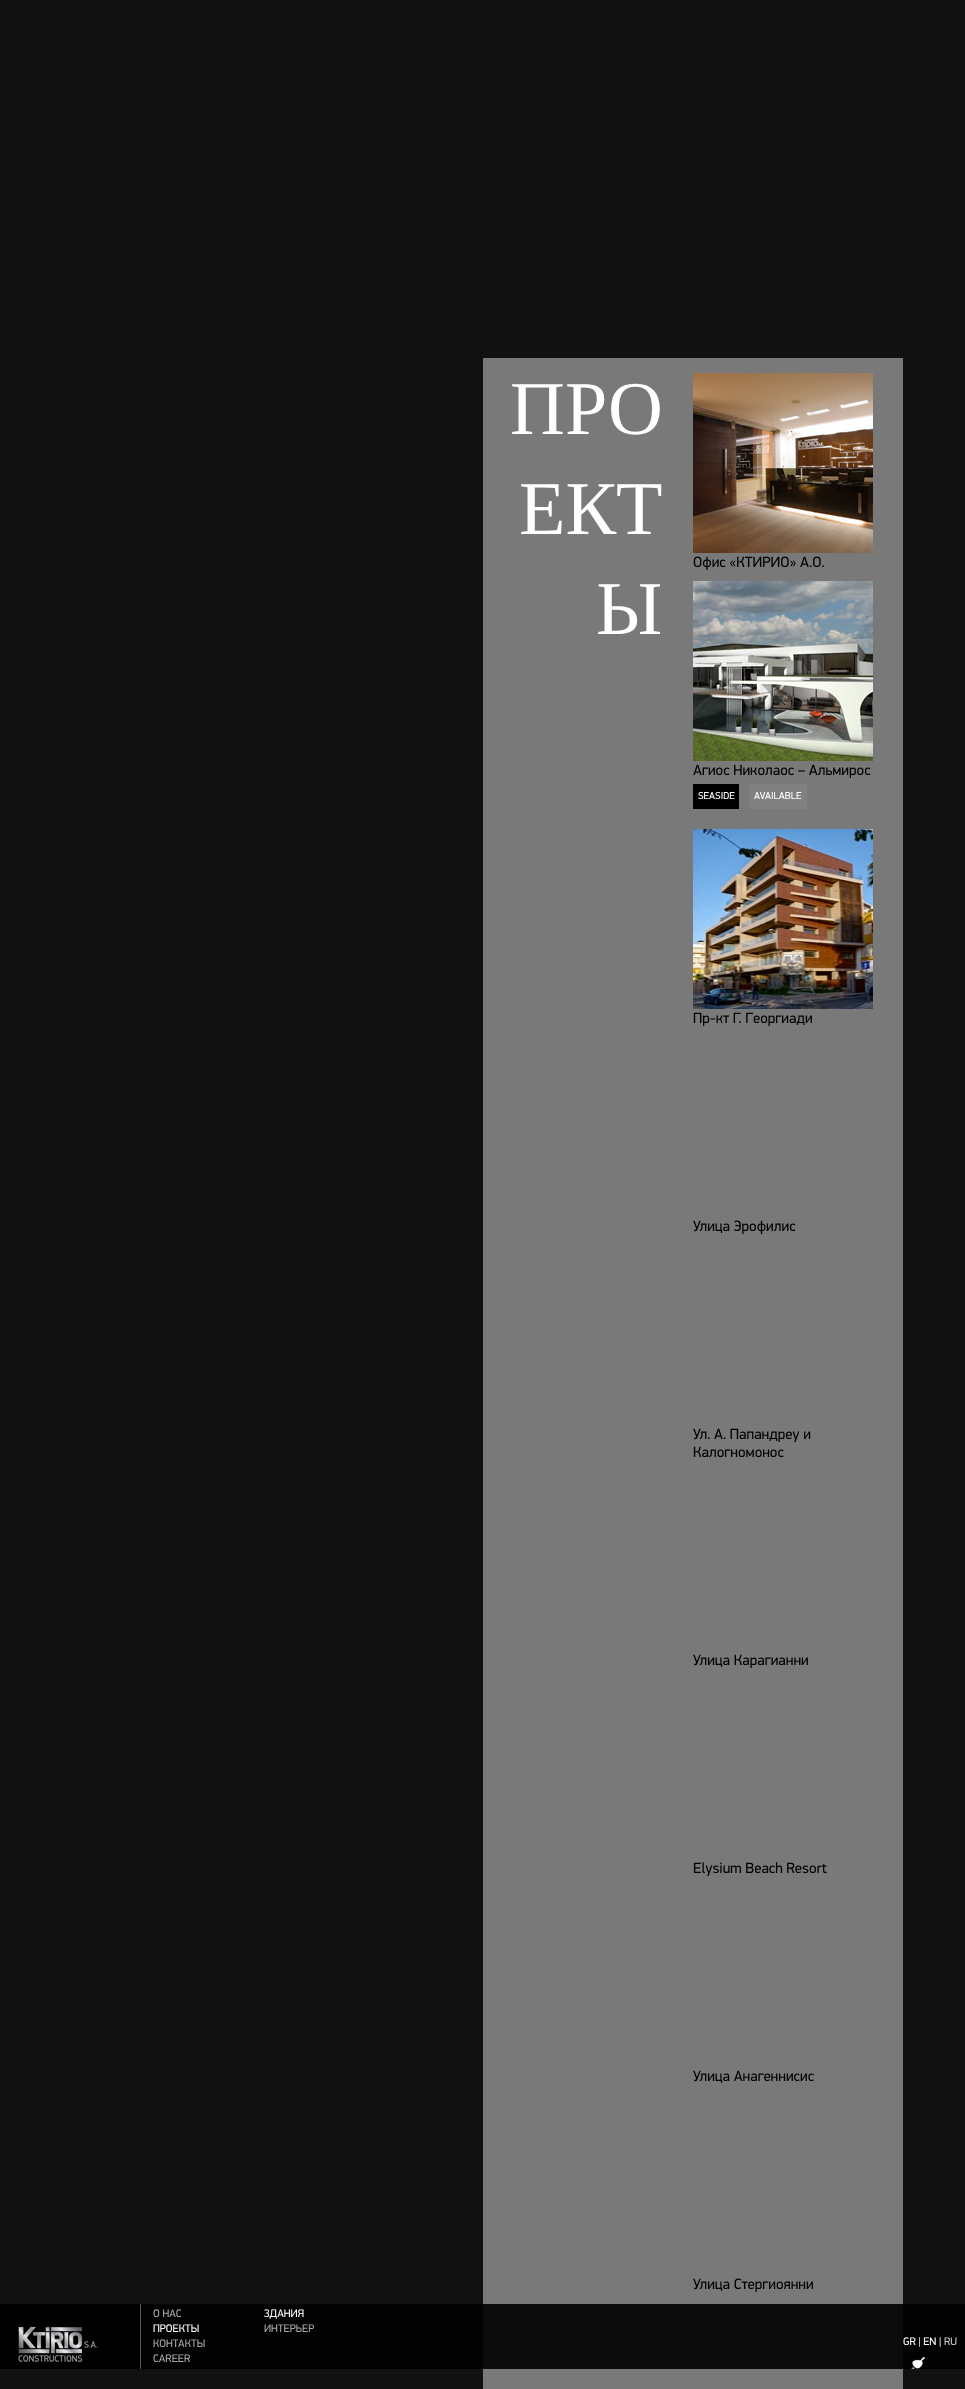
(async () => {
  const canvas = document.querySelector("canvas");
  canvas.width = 965;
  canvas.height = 2389;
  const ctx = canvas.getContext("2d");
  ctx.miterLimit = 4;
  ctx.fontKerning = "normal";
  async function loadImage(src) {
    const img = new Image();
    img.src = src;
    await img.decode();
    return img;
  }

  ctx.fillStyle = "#111111";
  ctx.fillRect(0, 0, 965, 2389);
  for (const [x, y, w, h, color] of [
    [141, 2304, 824, 65, "#020202"],
    [483, 358, 420, 2031, "#797979"],
    [483, 2304, 420, 65, "#0c0c0c"],
  ]) {
    ctx.fillStyle = color;
    ctx.fillRect(x, y, w, h);
  }
  ctx.drawImage(await loadImage("img/1.png"), 693, 373, 180, 180);
  ctx.drawImage(await loadImage("img/2.png"), 693, 581, 180, 180);
  ctx.fillStyle = "#000000";
  ctx.fillRect(693, 784, 46, 25);
  ctx.fillStyle = "#808080";
  ctx.fillRect(749, 784, 58, 25);
  ctx.drawImage(await loadImage("img/3.png"), 693, 829, 180, 180);
  ctx.fillStyle = "#000000";
  ctx.fillRect(0, 2304, 140, 65);
  ctx.fillStyle = "#5c5553";
  ctx.fillRect(140, 2304, 1, 65);
  ctx.drawImage(await loadImage("img/4.png"), 18, 2327, 80, 35);
  ctx.drawImage(await loadImage("img/5.png"), 911, 2357, 14, 12);
  ctx.font = "76px Liberation Serif";
  ctx.fillStyle = "#ffffff";
  for (const [text, x, y] of [
    ["ПРО", 510, 434],
    ["ЕКТ", 519, 534],
    ["Ы", 596, 634],
  ]) {
    ctx.fillText(text, x, y);
  }
  ctx.font = "15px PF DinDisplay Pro";
  ctx.fillStyle = "#000000";
  ctx.fillText("Офис «КТИРИО» А.О.", 693, 567);
  ctx.fillText("Агиос Николаос – Альмирос", 693, 775);
  ctx.font = "10px PF DinDisplay Pro";
  ctx.fillStyle = "#ffffff";
  ctx.fillText("SEASIDE", 698, 799);
  ctx.fillText("AVAILABLE", 754, 799);
  ctx.font = "15px PF DinDisplay Pro";
  ctx.fillStyle = "#000000";
  for (const [text, x, y] of [
    ["Пр-кт Γ. Γеоргиади", 693, 1023],
    ["Улица Эрофилис", 693, 1231],
    ["Ул. Α. Папандреу и", 693, 1439],
    ["Калогномонос", 693, 1457],
    ["Улица Карагианни", 693, 1665],
    ["Elysium Beach Resort", 693, 1873],
    ["Улица Анагеннисис", 693, 2081],
    ["Улица Стергиоянни", 693, 2289],
  ]) {
    ctx.fillText(text, x, y);
  }
  ctx.font = "11px PF DinDisplay Pro";
  ctx.fillStyle = "#a7a9ac";
  ctx.fillText("О НАС", 153, 2317);
  ctx.fillStyle = "#ffffff";
  ctx.fillText("ПРОЕКТЫ", 153, 2332);
  ctx.fillStyle = "#a7a9ac";
  ctx.fillText("КОНТАКТЫ", 153, 2347);
  ctx.fillText("CAREER", 153, 2362);
  ctx.fillStyle = "#ffffff";
  ctx.fillText("ЗДАНИЯ", 264, 2317);
  ctx.fillStyle = "#a7a9ac";
  ctx.fillText("ИНТЕРЬЕР", 264, 2332);
  ctx.fillStyle = "#ffffff";
  ctx.fillText("GR | EN |", 903, 2345);
  ctx.fillStyle = "#cccccc";
  ctx.fillText("RU", 944, 2345);
})();
